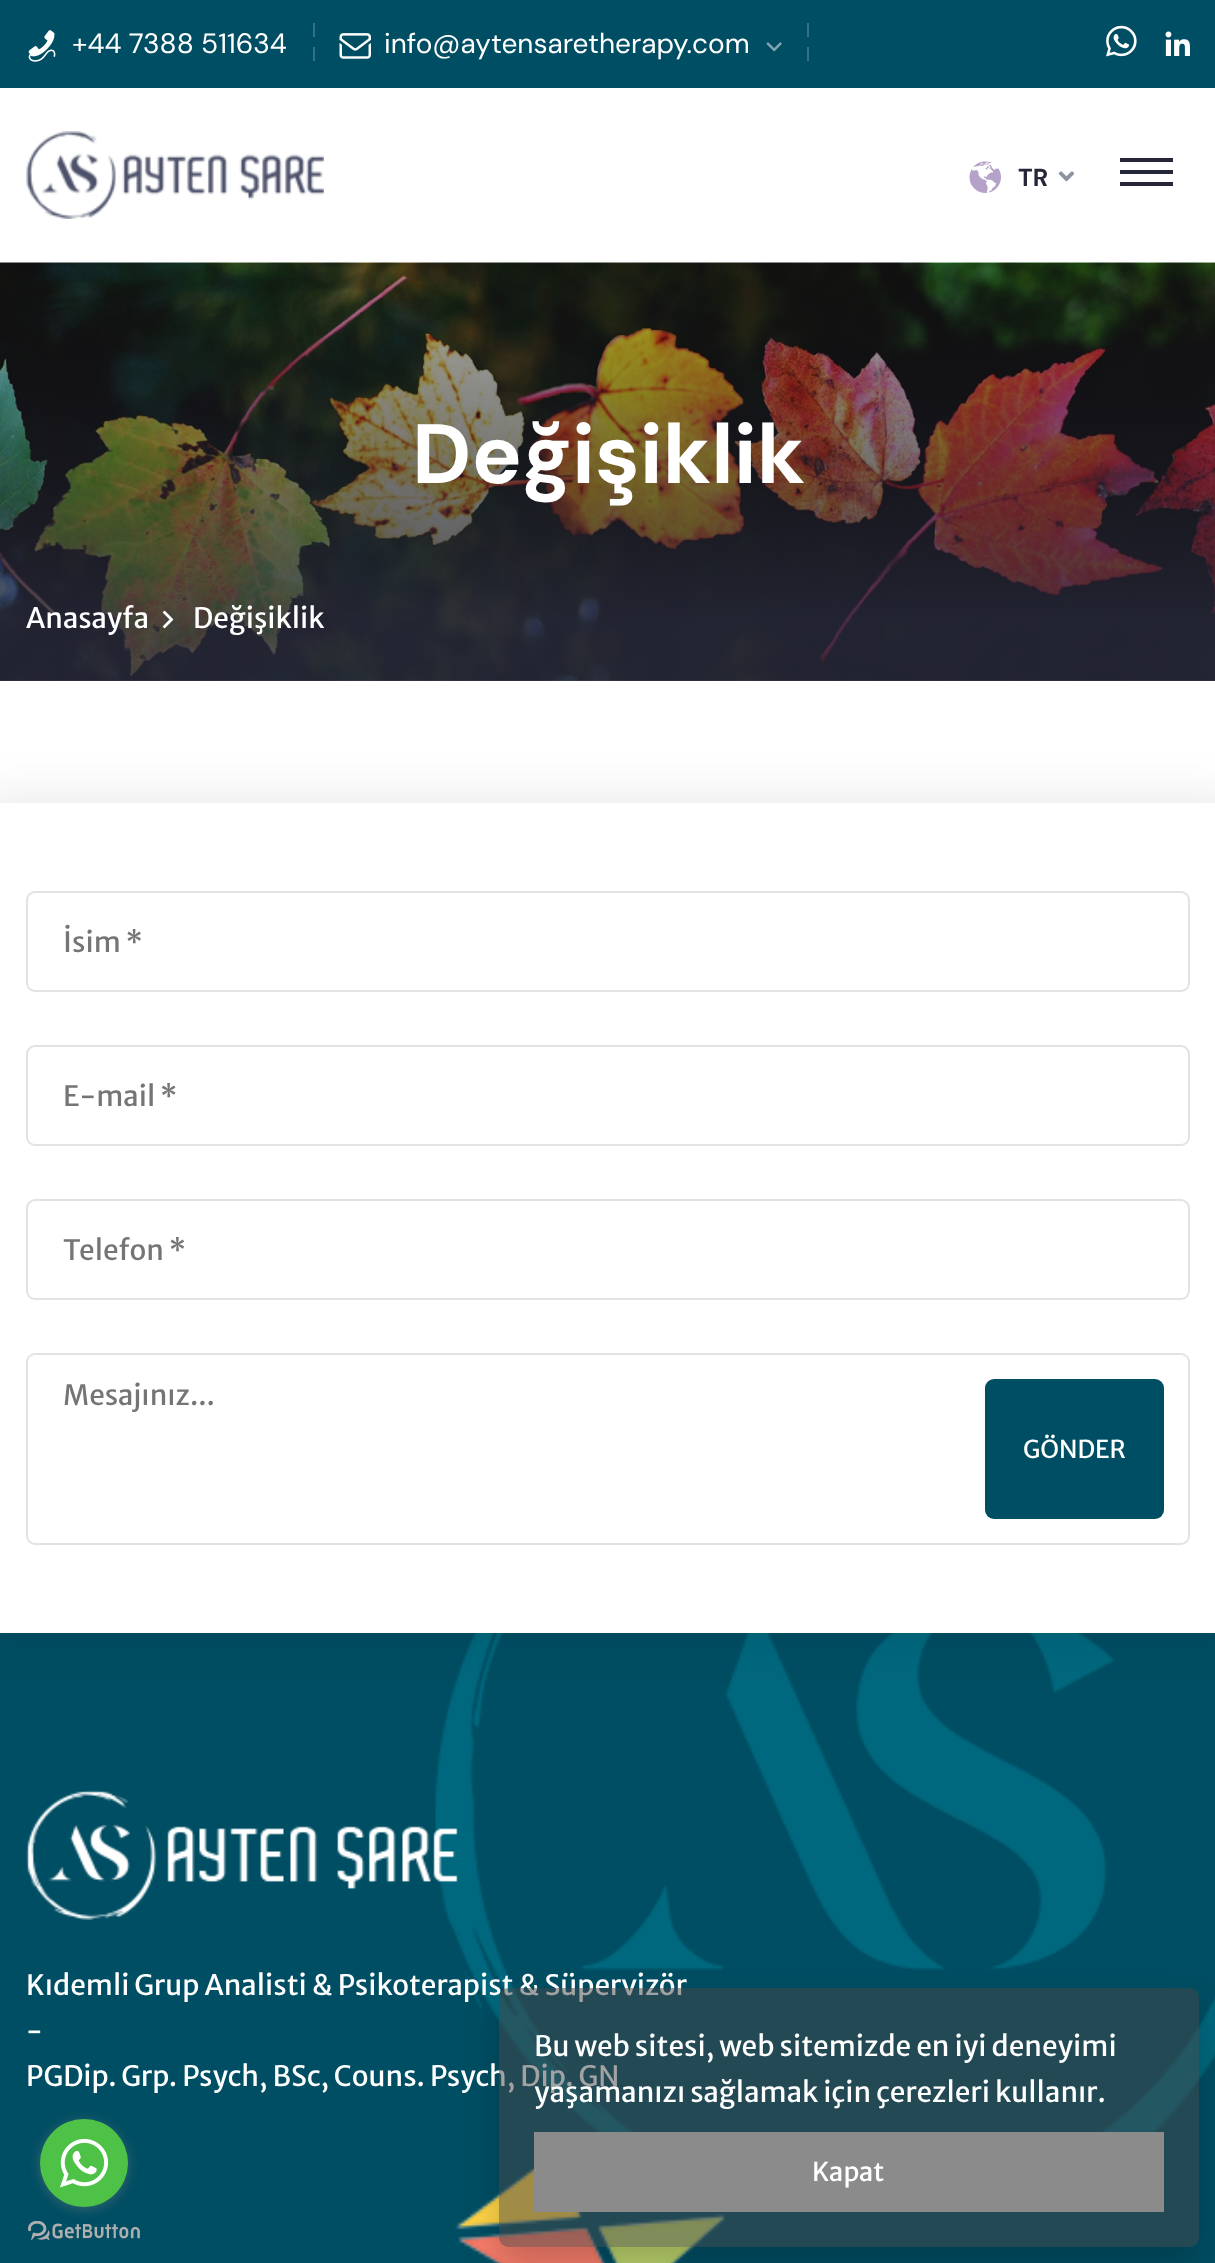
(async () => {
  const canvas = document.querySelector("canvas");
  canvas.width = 1215;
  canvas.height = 2263;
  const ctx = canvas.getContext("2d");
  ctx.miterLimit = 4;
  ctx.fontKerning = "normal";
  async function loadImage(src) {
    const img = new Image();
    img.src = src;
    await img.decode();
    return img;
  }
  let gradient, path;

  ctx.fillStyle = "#ffffff";
  ctx.fillRect(0, 0, 1215, 2263);
  ctx.fillStyle = "#004e63";
  ctx.fillRect(0, 0, 1215, 88);
  ctx.drawImage(await loadImage("img/1.png"), 28, 30, 28, 32);
  for (const [x, y, w, h, color] of [
    [313, 23, 2, 14, "#337182"],
    [313, 47, 2, 14, "#337182"],
    [807, 23, 2, 14, "#337182"],
  ]) {
    ctx.fillStyle = color;
    ctx.fillRect(x, y, w, h);
  }
  ctx.drawImage(await loadImage("img/2.png"), 339, 33, 32, 26);
  ctx.drawImage(await loadImage("img/3.png"), 766, 42, 16, 10);
  ctx.fillRect(807, 47, 2, 14);
  ctx.drawImage(await loadImage("img/4.png"), 1106, 25, 31, 32);
  ctx.drawImage(await loadImage("img/5.png"), 1165, 31, 25, 25);
  ctx.drawImage(await loadImage("img/6.png"), 26, 131, 298, 88);
  ctx.drawImage(await loadImage("img/7.png"), 969, 161, 32, 32);
  ctx.drawImage(await loadImage("img/8.png"), 1058, 171, 17, 11);
  for (const [x, y, w, h, color] of [
    [1120, 158, 53, 4, "#252638"],
    [1120, 170, 53, 4, "#252638"],
    [1120, 182, 53, 4, "#252638"],
  ]) {
    ctx.fillStyle = color;
    ctx.fillRect(x, y, w, h);
  }
  ctx.drawImage(await loadImage("img/9.png"), 0, 262, 1215, 419);
  gradient = ctx.createLinearGradient(608, 681, 608, 263);
  gradient.addColorStop(0.15, "rgba(37, 38, 56, 0.8)");
  gradient.addColorStop(1, "rgba(0, 0, 0, 0.3)");
  ctx.fillStyle = gradient;
  ctx.fillRect(0, 263, 1215, 418);
  ctx.drawImage(await loadImage("img/10.png"), 162, 610, 12, 19);
  ctx.fillStyle = "#004e63";
  ctx.fillRect(0, 1633, 1215, 630);
  ctx.drawImage(await loadImage("img/11.png"), 435, 1633, 780, 499);
  ctx.fillStyle = "rgba(0, 0, 0, 0.1)";
  ctx.filter = "blur(26px)";
  ctx.beginPath();
  ctx.roundRect(-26, 803, 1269, 830, 9);
  ctx.fill();
  ctx.filter = "none";
  ctx.fillStyle = "#ffffff";
  ctx.fillRect(0, 803, 1215, 830);
  ctx.beginPath();
  ctx.roundRect(27, 892, 1162, 99, 8);
  ctx.strokeStyle = "#e3e3e3";
  ctx.lineWidth = 2;
  ctx.stroke();
  ctx.beginPath();
  ctx.roundRect(27, 1046, 1162, 99, 8);
  ctx.stroke();
  ctx.beginPath();
  ctx.roundRect(27, 1200, 1162, 99, 8);
  ctx.stroke();
  ctx.beginPath();
  ctx.roundRect(27, 1354, 1162, 190, 8);
  ctx.stroke();
  ctx.fillStyle = "#004e63";
  ctx.beginPath();
  ctx.roundRect(985, 1379, 179, 140, 9);
  ctx.fill();
  ctx.drawImage(await loadImage("img/12.png"), 26, 1790, 432, 130);
  ctx.drawImage(await loadImage("img/13.png"), 455, 2166, 270, 97);
  ctx.drawImage(await loadImage("img/15.png"), 28, 2221, 112, 19);
  ctx.fillStyle = "rgba(136, 136, 136, 0.4)";
  ctx.filter = "blur(6px)";
  ctx.beginPath();
  ctx.roundRect(40, 2121, 88, 88, 44);
  ctx.fill();
  ctx.filter = "none";
  ctx.fillStyle = "#4dc247";
  ctx.beginPath();
  ctx.arc(84, 2163, 44, 0, Math.PI * 2);
  ctx.fill();
  ctx.drawImage(await loadImage("img/14.png"), 60, 2138, 49, 50);
  ctx.save();
  path = new Path2D("M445 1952H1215V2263H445ZM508 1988H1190C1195 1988 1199 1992 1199 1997V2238C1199 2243 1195 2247 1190 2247H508C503 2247 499 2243 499 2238V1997C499 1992 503 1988 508 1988Z");
  ctx.clip(path, "evenodd");
  ctx.fillStyle = "rgba(0, 0, 0, 0.2)";
  ctx.filter = "blur(17.5px)";
  ctx.beginPath();
  ctx.roundRect(499, 2006, 700, 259, 9);
  ctx.fill();
  ctx.filter = "none";
  ctx.restore();
  ctx.font = "28px DM Sans";
  ctx.fillStyle = "#ffffff";
  ctx.fillText("+44 7388 511634", 72, 53);
  ctx.fillText("info@aytensaretherapy.com", 384, 53);
  ctx.font = "bold 24.5px DM Sans";
  ctx.fillStyle = "#252638";
  ctx.fillText("TR", 1018, 186);
  ctx.font = "bold 84px DM Sans";
  ctx.fillStyle = "#ffffff";
  ctx.fillText("Değişiklik", 412, 483);
  ctx.font = "28px Merriweather Sans";
  ctx.fillText("Anasayfa", 26, 628);
  ctx.fillText("Değişiklik", 193, 628);
  ctx.fillStyle = "#757575";
  for (const [text, x, y] of [
    ["İsim *", 63, 952],
    ["E-mail *", 63, 1106],
    ["Telefon *", 63, 1260],
    ["Mesajınız...", 63, 1405],
  ]) {
    ctx.fillText(text, x, y);
  }
  ctx.font = "24.5px Merriweather Sans";
  ctx.fillStyle = "#ffffff";
  ctx.fillText("GÖNDER", 1023, 1458);
  ctx.font = "28px Merriweather Sans";
  for (const [text, x, y] of [
    ["Kıdemli Grup Analisti & Psikoterapist & Süpervizör", 26, 1995],
    ["-", 26, 2041],
    ["PGDip. Grp. Psych, BSc, Couns. Psych, Dip. GN", 26, 2086],
  ]) {
    ctx.fillText(text, x, y);
  }
  ctx.fillStyle = "rgba(70, 70, 70, 0.5)";
  ctx.beginPath();
  ctx.roundRect(499, 1988, 700, 259, 9);
  ctx.fill();
  ctx.fillStyle = "#ffffff";
  ctx.fillText("Bu web sitesi, web sitemizde en iyi deneyimi", 534, 2056);
  ctx.fillText("yaşamanızı sağlamak için çerezleri kullanır.", 534, 2102);
  ctx.fillStyle = "#8b8b8b";
  ctx.fillRect(534, 2132, 630, 80);
  ctx.font = "26px Merriweather Sans";
  ctx.fillStyle = "#ffffff";
  ctx.fillText("Kapat", 812, 2181);
})();
